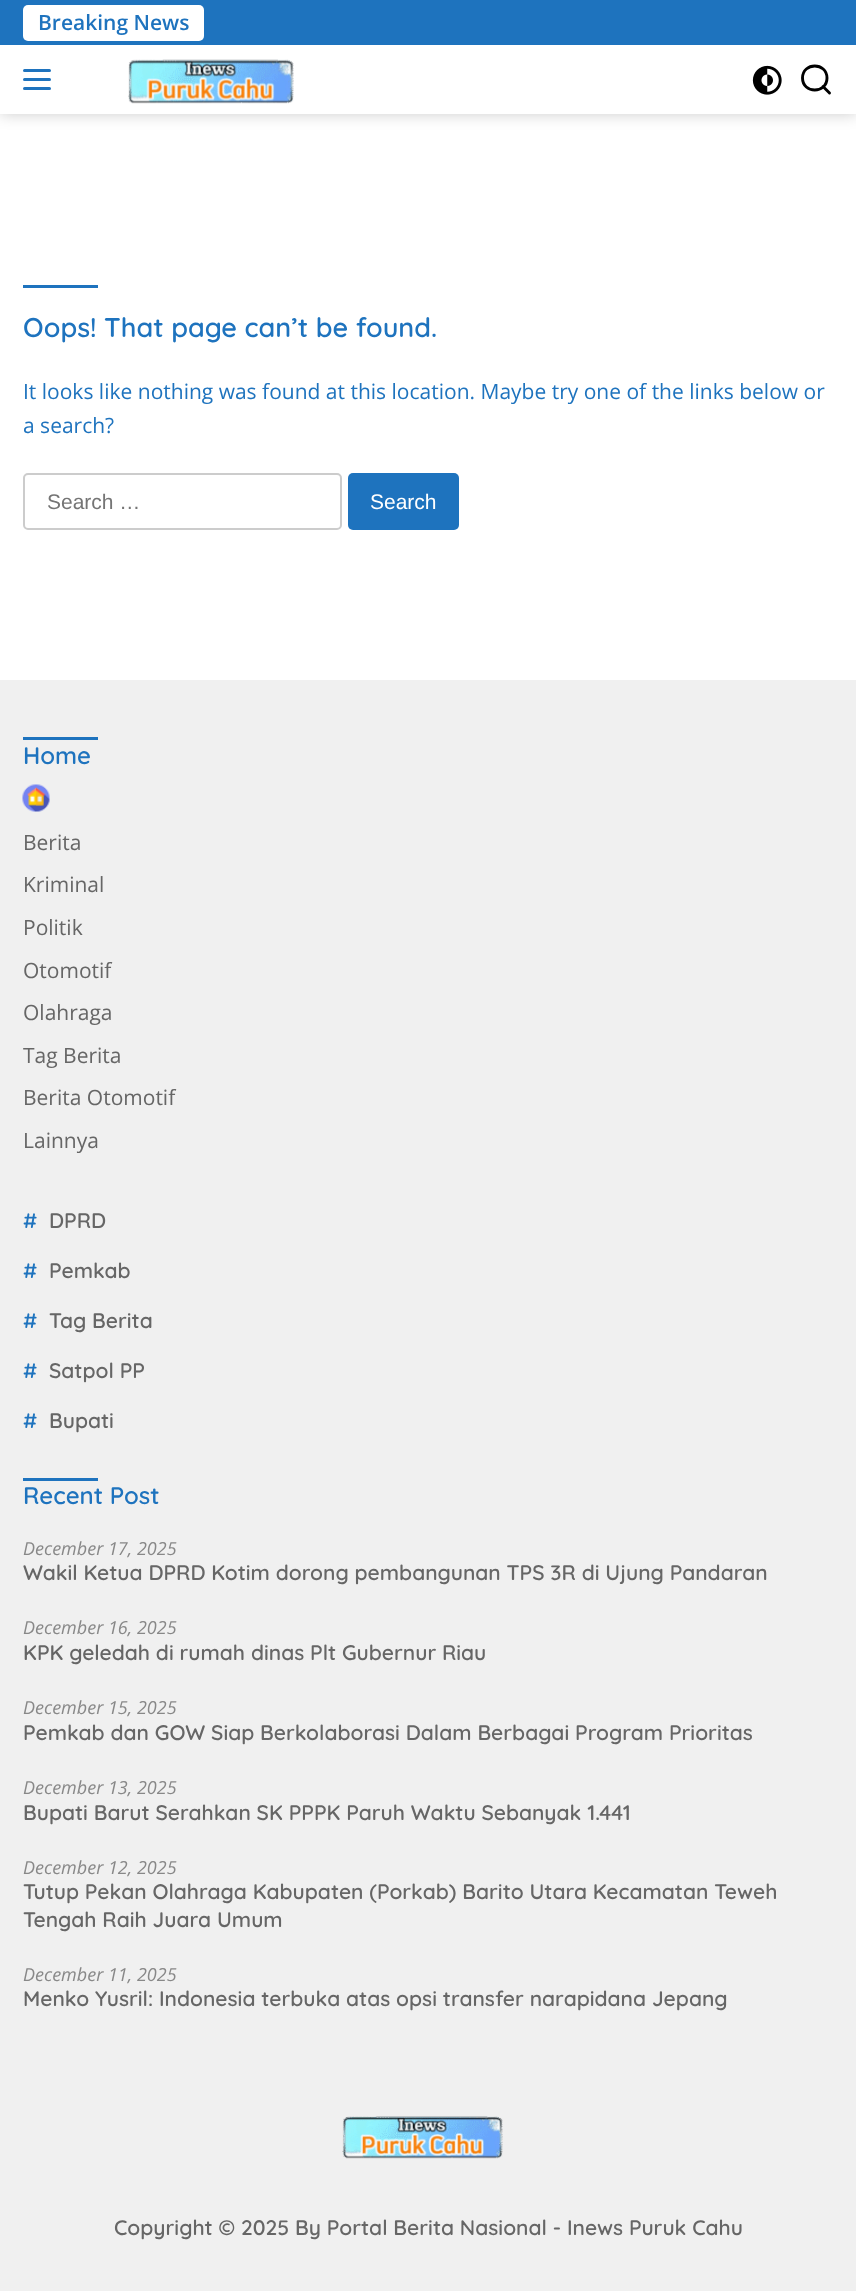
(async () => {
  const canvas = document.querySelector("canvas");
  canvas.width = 856;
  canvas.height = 2291;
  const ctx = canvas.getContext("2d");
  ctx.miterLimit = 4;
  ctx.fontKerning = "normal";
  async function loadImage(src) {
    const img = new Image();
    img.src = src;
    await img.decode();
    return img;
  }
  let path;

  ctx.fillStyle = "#ffffff";
  ctx.fillRect(0, 0, 856, 2291);
  ctx.fillStyle = "rgba(0, 0, 0, 0.2)";
  ctx.filter = "blur(7.5px)";
  ctx.beginPath();
  ctx.rect(0, 0, 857, 114);
  ctx.fill();
  ctx.filter = "none";
  ctx.fillStyle = "#ffffff";
  ctx.fillRect(0, 45, 856, 69);
  ctx.fillStyle = "#1e73be";
  ctx.fillRect(0, 0, 856, 45);
  ctx.fillStyle = "#ffffff";
  ctx.beginPath();
  ctx.roundRect(23, 5, 181, 36, 5);
  ctx.fill();
  ctx.fillStyle = "#1e73be";
  ctx.beginPath();
  ctx.roundRect(23, 69, 28, 3, 1.5);
  ctx.fill();
  ctx.beginPath();
  ctx.roundRect(23, 78, 28, 3, 1.5);
  ctx.fill();
  ctx.beginPath();
  ctx.roundRect(23, 87, 28, 3, 1.5);
  ctx.fill();
  ctx.drawImage(await loadImage("img/1.png"), 128, 59, 166, 45);
  ctx.drawImage(await loadImage("img/2.png"), 752, 65, 30, 30);
  path = new Path2D("M829.5 93L823 86.5M827 78C827 94 802.5 94 802.5 78C802.5 62 827 62 827 78Z");
  ctx.strokeStyle = "#000000";
  ctx.lineWidth = 2.9;
  ctx.lineCap = "round";
  ctx.stroke(path);
  ctx.fillRect(23, 285, 75, 3);
  ctx.beginPath();
  ctx.roundRect(24, 474, 317, 55, 4);
  ctx.strokeStyle = "#cccccc";
  ctx.lineWidth = 2;
  ctx.stroke();
  ctx.beginPath();
  ctx.roundRect(348, 473, 111, 57, 5);
  ctx.fill();
  ctx.fillStyle = "#f0f0f0";
  ctx.fillRect(0, 680, 856, 1611);
  ctx.fillStyle = "#1e73be";
  ctx.fillRect(23, 737, 75, 3);
  ctx.drawImage(await loadImage("img/3.png"), 22, 784, 28, 28);
  ctx.fillRect(23, 1478, 75, 3);
  ctx.drawImage(await loadImage("img/4.png"), 342, 2116, 161, 43);
  ctx.font = "600 21px Open Sans";
  ctx.fillText("Breaking News", 38, 30);
  ctx.font = "600 27px Quicksand";
  ctx.fillText("Oops! That page can’t be found.", 23, 337);
  ctx.font = "21px Open Sans";
  ctx.fillText("It looks like nothing was found at this location. Maybe try one of the links below or", 23, 399);
  ctx.fillText("a search?", 23, 433);
  ctx.font = "21px Liberation Sans";
  ctx.fillStyle = "#757575";
  ctx.fillText("Search …", 47, 509);
  ctx.fillStyle = "#ffffff";
  ctx.fillText("Search", 370, 509);
  ctx.font = "600 24px Quicksand";
  ctx.fillStyle = "#1e73be";
  ctx.fillText("Home", 23, 764);
  ctx.font = "21px Open Sans";
  ctx.fillStyle = "#666666";
  for (const [text, x, y] of [
    ["Berita", 23, 850],
    ["Kriminal", 23, 892],
    ["Politik", 23, 935],
    ["Otomotif", 23, 978],
    ["Olahraga", 23, 1020],
    ["Tag Berita", 23, 1063],
    ["Berita Otomotif", 23, 1105],
    ["Lainnya", 23, 1148],
  ]) {
    ctx.fillText(text, x, y);
  }
  ctx.font = "600 21px Quicksand";
  ctx.fillStyle = "#1e73be";
  ctx.fillText("#", 23, 1228);
  ctx.fillStyle = "#666666";
  ctx.fillText("DPRD", 49, 1228);
  ctx.fillStyle = "#1e73be";
  ctx.fillText("#", 23, 1278);
  ctx.fillStyle = "#666666";
  ctx.fillText("Pemkab", 49, 1278);
  ctx.fillStyle = "#1e73be";
  ctx.fillText("#", 23, 1328);
  ctx.fillStyle = "#666666";
  ctx.fillText("Tag Berita", 49, 1328);
  ctx.fillStyle = "#1e73be";
  ctx.fillText("#", 23, 1378);
  ctx.fillStyle = "#666666";
  ctx.fillText("Satpol PP", 49, 1378);
  ctx.fillStyle = "#1e73be";
  ctx.fillText("#", 23, 1428);
  ctx.fillStyle = "#666666";
  ctx.fillText("Bupati", 49, 1428);
  ctx.font = "600 24px Quicksand";
  ctx.fillStyle = "#1e73be";
  ctx.fillText("Recent Post", 23, 1504);
  ctx.font = "italic 18px Open Sans";
  ctx.fillStyle = "#888888";
  ctx.fillText("December 17, 2025", 23, 1555);
  ctx.font = "600 21px Quicksand";
  ctx.fillStyle = "#666666";
  ctx.fillText("Wakil Ketua DPRD Kotim dorong pembangunan TPS 3R di Ujung Pandaran", 23, 1580);
  ctx.font = "italic 18px Open Sans";
  ctx.fillStyle = "#888888";
  ctx.fillText("December 16, 2025", 23, 1634);
  ctx.font = "600 21px Quicksand";
  ctx.fillStyle = "#666666";
  ctx.fillText("KPK geledah di rumah dinas Plt Gubernur Riau", 23, 1660);
  ctx.font = "italic 18px Open Sans";
  ctx.fillStyle = "#888888";
  ctx.fillText("December 15, 2025", 23, 1714);
  ctx.font = "600 21px Quicksand";
  ctx.fillStyle = "#666666";
  ctx.fillText("Pemkab dan GOW Siap Berkolaborasi Dalam Berbagai Program Prioritas", 23, 1740);
  ctx.font = "italic 18px Open Sans";
  ctx.fillStyle = "#888888";
  ctx.fillText("December 13, 2025", 23, 1794);
  ctx.font = "600 21px Quicksand";
  ctx.fillStyle = "#666666";
  ctx.fillText("Bupati Barut Serahkan SK PPPK Paruh Waktu Sebanyak 1.441", 23, 1820);
  ctx.font = "italic 18px Open Sans";
  ctx.fillStyle = "#888888";
  ctx.fillText("December 12, 2025", 23, 1874);
  ctx.font = "600 21px Quicksand";
  ctx.fillStyle = "#666666";
  ctx.fillText("Tutup Pekan Olahraga Kabupaten (Porkab) Barito Utara Kecamatan Teweh", 23, 1899);
  ctx.fillText("Tengah Raih Juara Umum", 23, 1927);
  ctx.font = "italic 18px Open Sans";
  ctx.fillStyle = "#888888";
  ctx.fillText("December 11, 2025", 23, 1981);
  ctx.font = "600 21px Quicksand";
  ctx.fillStyle = "#666666";
  ctx.fillText("Menko Yusril: Indonesia terbuka atas opsi transfer narapidana Jepang", 23, 2006);
  ctx.fillText("Copyright © 2025 By Portal Berita Nasional - Inews Puruk Cahu", 114, 2235);
})();
